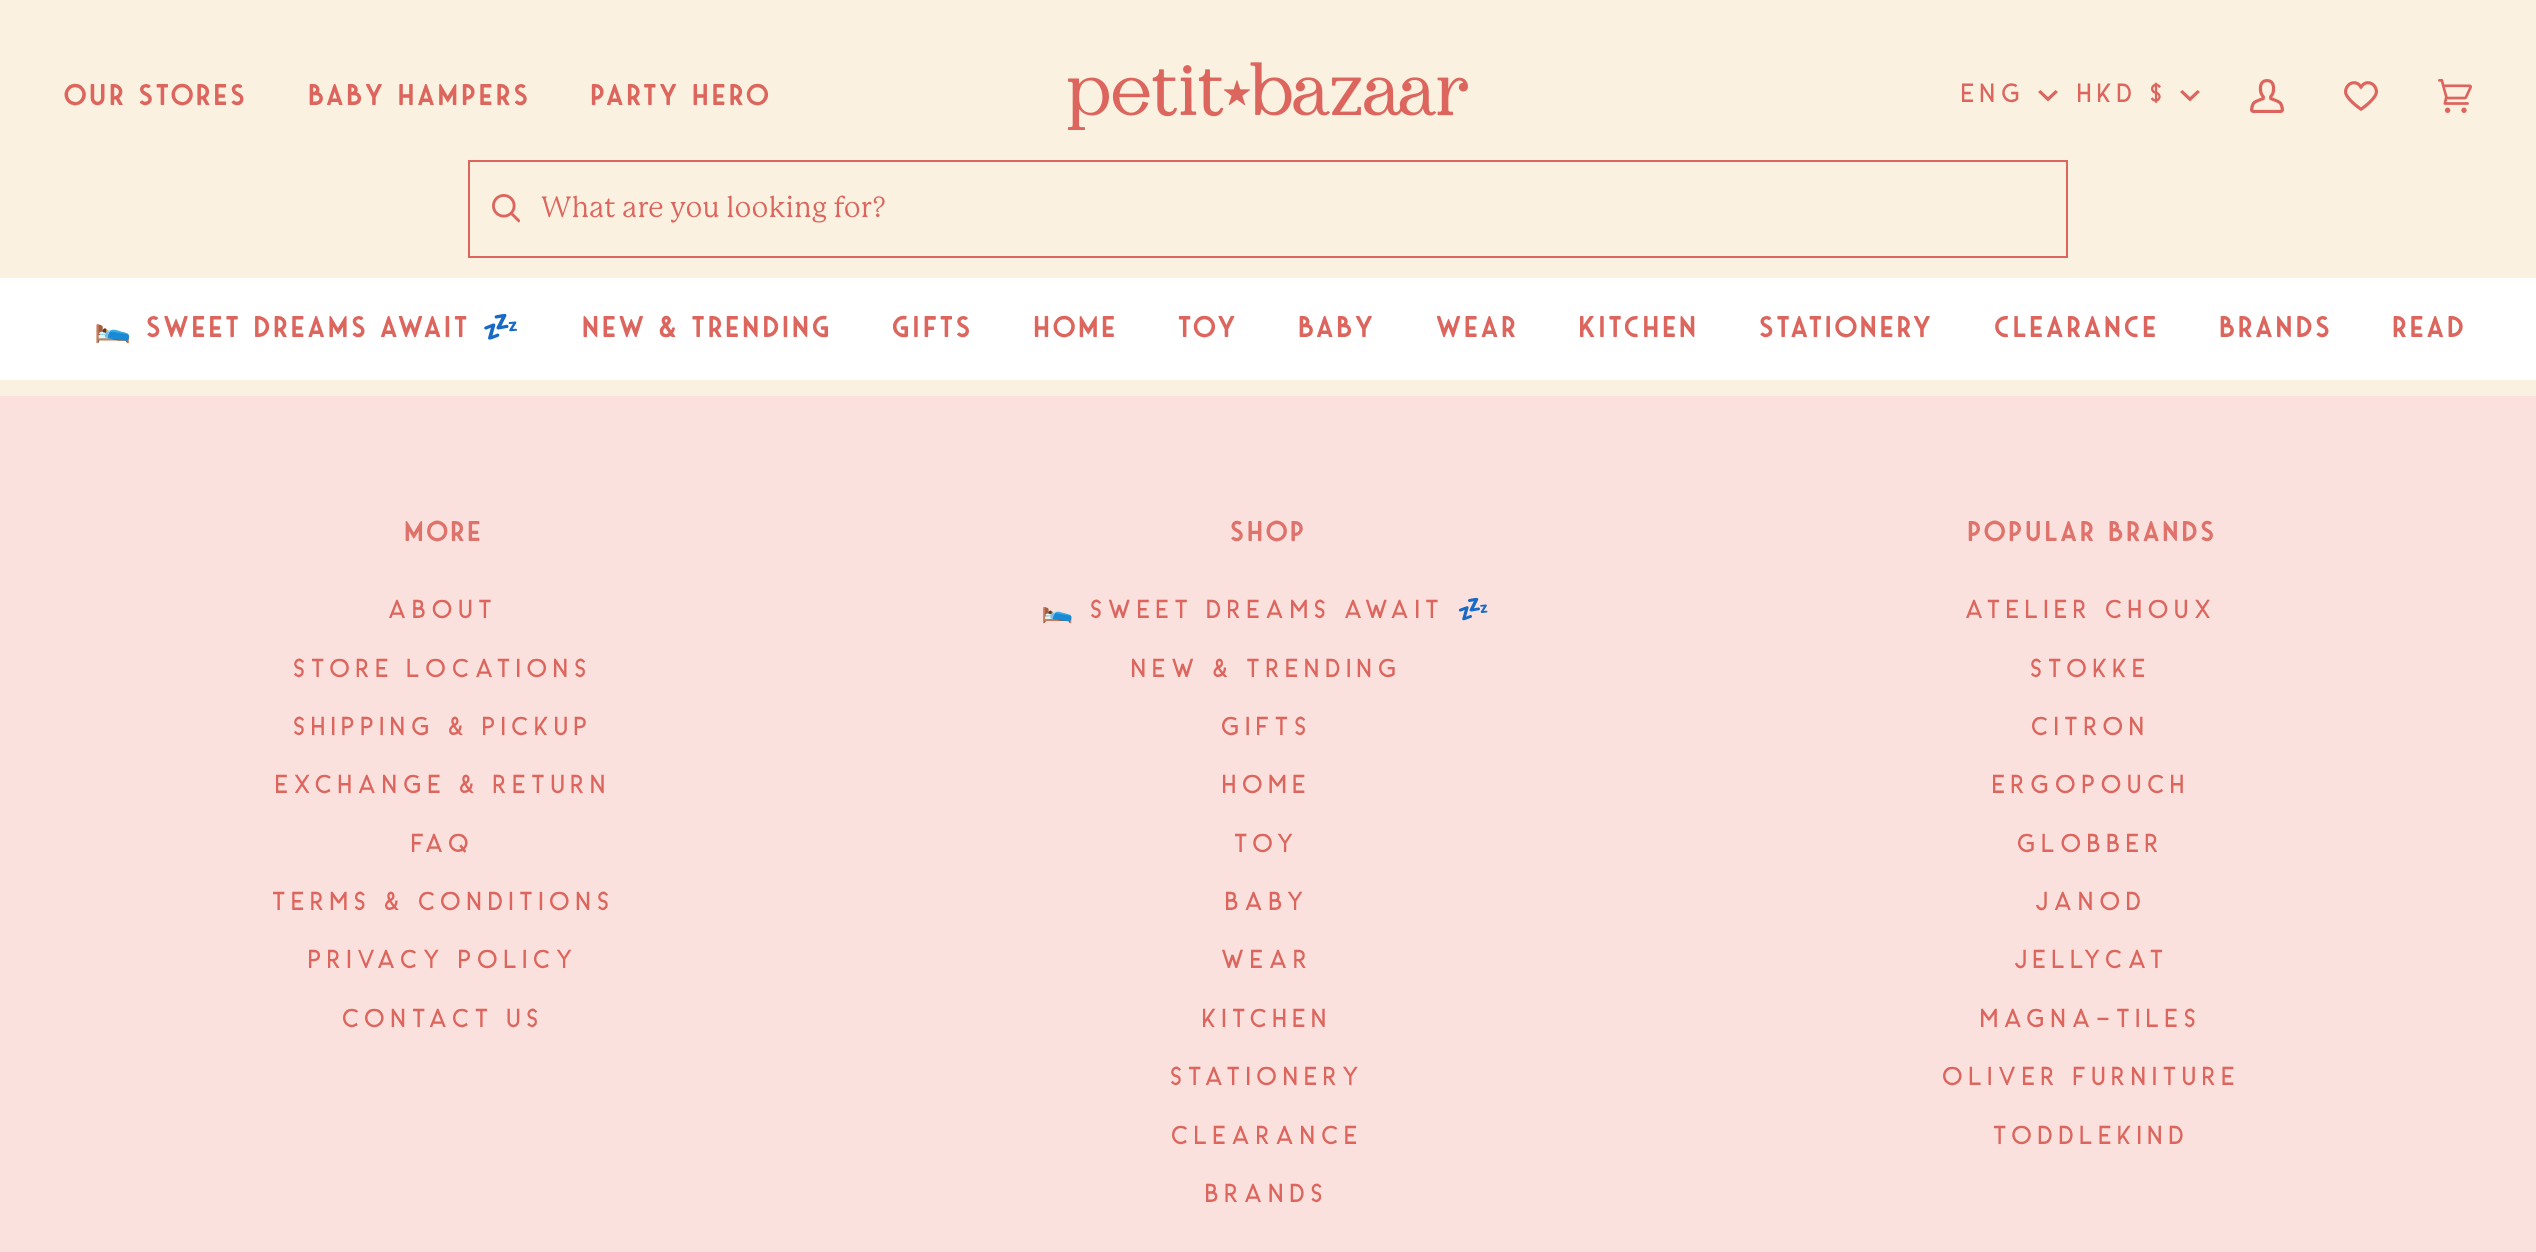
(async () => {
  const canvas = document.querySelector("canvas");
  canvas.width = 2536;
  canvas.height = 1252;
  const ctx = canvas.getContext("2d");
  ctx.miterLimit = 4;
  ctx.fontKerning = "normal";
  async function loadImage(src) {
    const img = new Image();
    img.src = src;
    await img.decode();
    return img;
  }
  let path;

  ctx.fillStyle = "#fbf1e0";
  ctx.fillRect(0, 0, 2536, 1252);
  ctx.drawImage(await loadImage("img/1.png"), 1068, 62, 400, 68);
  ctx.fillStyle = "#dc665e";
  path = new Path2D("M2038 92L2040.5 90L2048 97L2055.5 90L2058 92L2048 101.5Z");
  ctx.fill(path, "evenodd");
  path = new Path2D("M2180 92L2182.5 90L2190 97L2197.5 90L2200 92L2190 101.5Z");
  ctx.fill(path, "evenodd");
  ctx.drawImage(await loadImage("img/2.png"), 2250, 79, 34, 34);
  ctx.drawImage(await loadImage("img/3.png"), 2344, 81, 34, 30);
  ctx.drawImage(await loadImage("img/4.png"), 2438, 79, 34, 34);
  ctx.strokeStyle = "#dc665e";
  ctx.lineWidth = 2;
  ctx.strokeRect(469, 161, 1598, 96);
  ctx.drawImage(await loadImage("img/5.png"), 492, 194, 28, 29);
  ctx.fillStyle = "#ffffff";
  ctx.fillRect(0, 278, 2536, 102);
  ctx.fillStyle = "#fae1dd";
  ctx.fillRect(0, 396, 2536, 856);
  ctx.letterSpacing = "3px";
  ctx.font = "600 29.9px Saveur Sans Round";
  ctx.fillStyle = "#dc665e";
  for (const [text, x, y] of [
    ["Our Stores", 64, 105],
    ["Baby Hampers", 308, 105],
    ["Party Hero", 590, 105],
  ]) {
    ctx.fillText(text, x, y);
  }
  ctx.letterSpacing = "5.5px";
  ctx.font = "600 26.5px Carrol";
  ctx.fillText("ENG", 1962, 102);
  ctx.fillText("HKD $", 2078, 102);
  ctx.letterSpacing = "0px";
  ctx.font = "28.7px 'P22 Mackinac'";
  ctx.fillText("What are you looking for?", 541, 217);
  ctx.letterSpacing = "3px";
  ctx.font = "29.9px Noto Color Emoji";
  ctx.fillText("🛌", 94, 337);
  ctx.font = "600 29.9px Saveur Sans Round";
  ctx.fillText("Sweet Dreams Await", 146, 337);
  ctx.font = "29.9px Noto Color Emoji";
  ctx.fillText("💤", 482, 337);
  ctx.font = "600 29.9px Saveur Sans Round";
  for (const [text, x, y] of [
    ["New & Trending", 582, 337],
    ["Gifts", 892, 337],
    ["Home", 1033, 337],
    ["Toy", 1178, 337],
    ["Baby", 1298, 337],
    ["Wear", 1436, 337],
    ["Kitchen", 1578, 337],
    ["Stationery", 1759, 337],
    ["Clearance", 1994, 337],
    ["Brands", 2219, 337],
    ["Read", 2392, 337],
  ]) {
    ctx.fillText(text, x, y);
  }
  ctx.letterSpacing = "2.9px";
  ctx.font = "600 28.7px Saveur Sans Round";
  ctx.fillStyle = "#df726b";
  ctx.fillText("More", 404, 541);
  ctx.letterSpacing = "5.75px";
  ctx.font = "600 26px Carrol";
  ctx.fillStyle = "#dc665e";
  for (const [text, x, y] of [
    ["ABOUT", 389, 618],
    ["STORE LOCATIONS", 294, 677],
    ["SHIPPING & PICKUP", 294, 735],
    ["EXCHANGE & RETURN", 276, 793],
    ["FAQ", 412, 852],
    ["TERMS & CONDITIONS", 273, 910],
    ["PRIVACY POLICY", 309, 968],
    ["CONTACT US", 343, 1027],
  ]) {
    ctx.fillText(text, x, y);
  }
  ctx.letterSpacing = "2.9px";
  ctx.font = "600 28.7px Saveur Sans Round";
  ctx.fillStyle = "#df726b";
  ctx.fillText("Shop", 1230, 541);
  ctx.letterSpacing = "5.75px";
  ctx.font = "26px Noto Color Emoji";
  ctx.fillStyle = "#dc665e";
  ctx.fillText("🛌", 1041, 618);
  ctx.font = "600 26px Carrol";
  ctx.fillText("SWEET DREAMS AWAIT", 1091, 618);
  ctx.font = "26px Noto Color Emoji";
  ctx.fillText("💤", 1457, 618);
  ctx.font = "600 26px Carrol";
  for (const [text, x, y] of [
    ["NEW & TRENDING", 1132, 677],
    ["GIFTS", 1222, 735],
    ["HOME", 1223, 793],
    ["TOY", 1235, 852],
    ["BABY", 1226, 910],
    ["WEAR", 1222, 968],
    ["KITCHEN", 1203, 1027],
    ["STATIONERY", 1171, 1085],
    ["CLEARANCE", 1172, 1144],
    ["BRANDS", 1206, 1202],
  ]) {
    ctx.fillText(text, x, y);
  }
  ctx.letterSpacing = "2.9px";
  ctx.font = "600 28.7px Saveur Sans Round";
  ctx.fillStyle = "#df726b";
  ctx.fillText("Popular Brands", 1967, 541);
  ctx.letterSpacing = "5.75px";
  ctx.font = "600 26px Carrol";
  ctx.fillStyle = "#dc665e";
  for (const [text, x, y] of [
    ["ATELIER CHOUX", 1966, 618],
    ["STOKKE", 2031, 677],
    ["CITRON", 2032, 735],
    ["ERGOPOUCH", 1993, 793],
    ["GLOBBER", 2018, 852],
    ["JANOD", 2036, 910],
    ["JELLYCAT", 2015, 968],
    ["MAGNA-TILES", 1981, 1027],
    ["OLIVER FURNITURE", 1943, 1085],
    ["TODDLEKIND", 1994, 1144],
  ]) {
    ctx.fillText(text, x, y);
  }
})();
